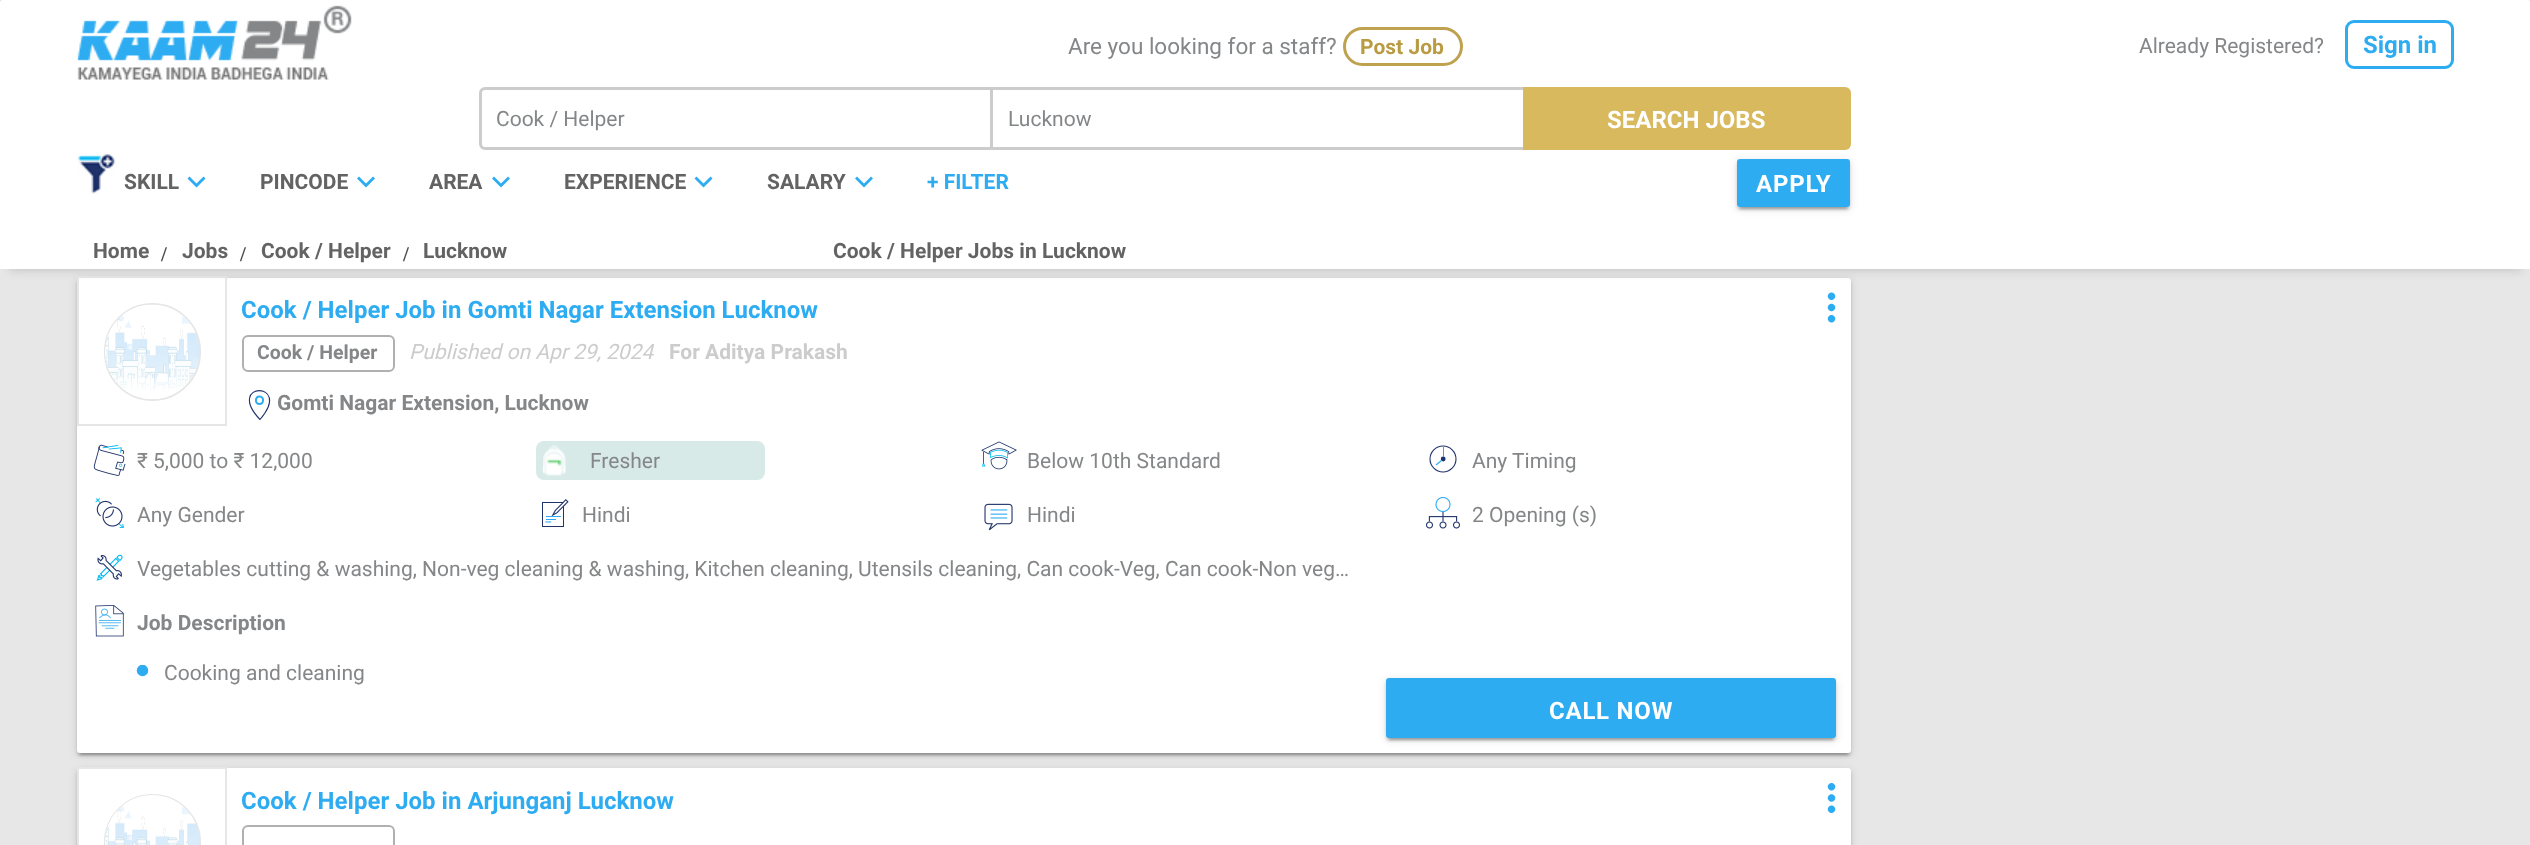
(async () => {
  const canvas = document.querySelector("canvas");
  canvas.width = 2530;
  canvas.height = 845;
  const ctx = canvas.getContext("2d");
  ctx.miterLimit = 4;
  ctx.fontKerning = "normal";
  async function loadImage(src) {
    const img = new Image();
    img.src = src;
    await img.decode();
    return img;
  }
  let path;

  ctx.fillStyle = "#e7e7e7";
  ctx.fillRect(0, 0, 2530, 845);
  ctx.fillStyle = "rgba(0, 0, 0, 0.12)";
  ctx.filter = "blur(4px)";
  ctx.beginPath();
  ctx.roundRect(0, 2, 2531, 91, 3);
  ctx.fill();
  ctx.filter = "none";
  ctx.fillStyle = "#ffffff";
  ctx.beginPath();
  ctx.roundRect(0, 0, 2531, 92, 3);
  ctx.fill();
  ctx.drawImage(await loadImage("img/1.png"), 76, 5, 276, 75);
  ctx.beginPath();
  ctx.roundRect(1344.5, 28.5, 117, 36, 18);
  ctx.strokeStyle = "#bea24f";
  ctx.lineWidth = 3;
  ctx.stroke();
  ctx.beginPath();
  ctx.roundRect(2346.5, 21.5, 106, 46, 7.5);
  ctx.strokeStyle = "#2eacf2";
  ctx.stroke();
  ctx.fillStyle = "rgba(0, 0, 0, 0.2)";
  ctx.filter = "blur(1px)";
  ctx.beginPath();
  ctx.rect(80, 285, 1768, 470);
  ctx.fill();
  ctx.filter = "none";
  ctx.fillStyle = "rgba(0, 0, 0, 0.12)";
  ctx.filter = "blur(4px)";
  ctx.beginPath();
  ctx.roundRect(77, 279, 1774, 476, 3);
  ctx.fill();
  ctx.filter = "none";
  ctx.fillStyle = "rgba(0, 0, 0, 0.14)";
  ctx.filter = "blur(1.5px)";
  ctx.beginPath();
  ctx.roundRect(77, 281, 1774, 475, 3);
  ctx.fill();
  ctx.filter = "none";
  ctx.fillStyle = "#ffffff";
  ctx.beginPath();
  ctx.roundRect(77, 278, 1774, 475, 3);
  ctx.fill();
  ctx.fillRect(79, 278, 1, 1);
  ctx.strokeStyle = "#e6e6e6";
  ctx.lineWidth = 2;
  ctx.strokeRect(78, 277, 148, 148);
  ctx.fillStyle = "#cccccc";
  ctx.filter = "blur(4.5px)";
  ctx.beginPath();
  ctx.rect(9, 101, 2513, 171);
  ctx.fill();
  ctx.filter = "none";
  ctx.fillStyle = "#ffffff";
  ctx.fillRect(0, 89, 2530, 180);
  ctx.beginPath();
  ctx.roundRect(480.5, 88.5, 511, 60, [4.5, 0, 0, 4.5]);
  ctx.strokeStyle = "#cccccc";
  ctx.lineWidth = 3;
  ctx.stroke();
  ctx.strokeRect(991.5, 88.5, 569, 60);
  ctx.fillStyle = "#d8b95e";
  ctx.beginPath();
  ctx.roundRect(1523, 87, 328, 63, [0, 6, 6, 0]);
  ctx.fill();
  ctx.drawImage(await loadImage("img/2.png"), 77, 154, 39, 40);
  ctx.fillStyle = "#2eacf2";
  path = new Path2D("M203.5 176.5L205.5 178.5L196.5 187.5L187.5 178.5L189.5 176.5L196.5 183.5Z");
  ctx.fill(path);
  path = new Path2D("M373 176.5L375 178.5L366 187.5L357 178.5L359 176.5L366 183.5Z");
  ctx.fill(path);
  path = new Path2D("M508 176.5L510 178.5L501 187.5L492 178.5L494 176.5L501 183.5Z");
  ctx.fill(path);
  path = new Path2D("M710.5 176.5L712.5 178.5L703.5 187.5L694.5 178.5L696.5 176.5L703.5 183.5Z");
  ctx.fill(path);
  path = new Path2D("M871 176.5L873 178.5L864 187.5L855 178.5L857 176.5L864 183.5Z");
  ctx.fill(path);
  ctx.fillStyle = "rgba(0, 0, 0, 0.2)";
  ctx.filter = "blur(1px)";
  ctx.beginPath();
  ctx.rect(1740, 167, 107, 42);
  ctx.fill();
  ctx.filter = "none";
  ctx.fillStyle = "rgba(0, 0, 0, 0.12)";
  ctx.filter = "blur(4px)";
  ctx.beginPath();
  ctx.roundRect(1737, 161, 113, 48, 3);
  ctx.fill();
  ctx.filter = "none";
  ctx.fillStyle = "rgba(0, 0, 0, 0.14)";
  ctx.filter = "blur(1.5px)";
  ctx.beginPath();
  ctx.roundRect(1737, 162, 113, 48, 3);
  ctx.fill();
  ctx.filter = "none";
  ctx.fillStyle = "#2eacf2";
  ctx.beginPath();
  ctx.roundRect(1737, 159, 113, 48, 3);
  ctx.fill();
  ctx.beginPath();
  ctx.roundRect(105, 304, 95, 96, 47.5);
  ctx.strokeStyle = "#e6e6e6";
  ctx.lineWidth = 2;
  ctx.stroke();
  ctx.drawImage(await loadImage("img/3.png"), 105, 304, 95, 95);
  ctx.beginPath();
  ctx.roundRect(243, 336, 151, 35, 5);
  ctx.strokeStyle = "#b0b0b0";
  ctx.stroke();
  path = new Path2D("M259.5 396.5C264.5 396.5 264 404 259.5 404C254.5 404 255 396.5 259.5 396.5Z");
  ctx.strokeStyle = "#2eacf2";
  ctx.stroke(path);
  path = new Path2D("M260 419.5C224 381.5 294 380.5 260 419.5Z");
  ctx.strokeStyle = "#20336b";
  ctx.lineWidth = 1.1;
  ctx.stroke(path);
  ctx.drawImage(await loadImage("img/4.png"), 1827, 292, 9, 31);
  ctx.drawImage(await loadImage("img/5.png"), 93, 444, 33, 32);
  ctx.fillStyle = "#d7eae7";
  ctx.beginPath();
  ctx.roundRect(536, 441, 229, 39, 8);
  ctx.fill();
  ctx.drawImage(await loadImage("img/6.png"), 543, 445, 23, 31);
  ctx.drawImage(await loadImage("img/7.png"), 981, 441, 36, 29);
  ctx.beginPath();
  ctx.arc(1443, 459, 13, 0, Math.PI * 2);
  ctx.stroke();
  ctx.fillStyle = "#20336b";
  ctx.beginPath();
  ctx.arc(1443.2, 459, 2.4, 0, Math.PI * 2);
  ctx.fill();
  ctx.fillStyle = "#2eacf2";
  ctx.fillRect(1443, 447, 1, 10);
  path = new Path2D("M1436 465L1441.5 460.5");
  ctx.strokeStyle = "#2eacf2";
  ctx.stroke(path);
  ctx.drawImage(await loadImage("img/8.png"), 95, 498, 29, 30);
  ctx.drawImage(await loadImage("img/9.png"), 542, 499, 27, 28);
  ctx.drawImage(await loadImage("img/10.png"), 984, 503, 29, 28);
  ctx.drawImage(await loadImage("img/11.png"), 1426, 497, 34, 32);
  ctx.drawImage(await loadImage("img/12.png"), 96, 554, 27, 27);
  ctx.drawImage(await loadImage("img/13.png"), 95, 605, 29, 32);
  ctx.beginPath();
  ctx.arc(142.5, 670.5, 5, 0, Math.PI * 2);
  ctx.fill();
  ctx.save();
  ctx.beginPath();
  ctx.rect(135, 665, 18, 15);
  ctx.clip();
  ctx.beginPath();
  ctx.arc(142.5, 670.5, 5, 0, Math.PI * 2);
  ctx.lineWidth = 1.5;
  ctx.stroke();
  ctx.restore();
  ctx.fillStyle = "rgba(0, 0, 0, 0.2)";
  ctx.filter = "blur(1px)";
  ctx.beginPath();
  ctx.rect(1389, 686, 444, 54);
  ctx.fill();
  ctx.filter = "none";
  ctx.fillStyle = "rgba(0, 0, 0, 0.12)";
  ctx.filter = "blur(4px)";
  ctx.beginPath();
  ctx.roundRect(1386, 680, 450, 60, 3);
  ctx.fill();
  ctx.filter = "none";
  ctx.fillStyle = "rgba(0, 0, 0, 0.14)";
  ctx.filter = "blur(1.5px)";
  ctx.beginPath();
  ctx.roundRect(1386, 681, 450, 60, 3);
  ctx.fill();
  ctx.filter = "none";
  ctx.fillStyle = "#2eacf2";
  ctx.beginPath();
  ctx.roundRect(1386, 678, 450, 60, 3);
  ctx.fill();
  ctx.fillStyle = "rgba(0, 0, 0, 0.12)";
  ctx.filter = "blur(4px)";
  ctx.beginPath();
  ctx.roundRect(77, 770, 1774, 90, 3);
  ctx.fill();
  ctx.filter = "none";
  ctx.fillStyle = "rgba(0, 0, 0, 0.14)";
  ctx.filter = "blur(1.5px)";
  ctx.beginPath();
  ctx.roundRect(77, 771, 1774, 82, 3);
  ctx.fill();
  ctx.filter = "none";
  ctx.fillStyle = "#ffffff";
  ctx.beginPath();
  ctx.roundRect(77, 768, 1774, 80, 3);
  ctx.fill();
  ctx.strokeStyle = "#e6e6e6";
  ctx.lineWidth = 2;
  ctx.strokeRect(78, 768, 148, 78);
  ctx.beginPath();
  ctx.arc(152.5, 842.5, 47.5, 0, Math.PI * 2);
  ctx.stroke();
  ctx.drawImage(await loadImage("img/14.png"), 105, 795, 95, 50);
  ctx.beginPath();
  ctx.roundRect(243, 826, 151, 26, 5);
  ctx.strokeStyle = "#b0b0b0";
  ctx.stroke();
  ctx.drawImage(await loadImage("img/15.png"), 1827, 783, 9, 30);
  ctx.font = "22.5px Roboto";
  ctx.fillStyle = "#848688";
  ctx.fillText("Are you looking for a staff?", 1068, 54);
  ctx.font = "bold 21px Roboto";
  ctx.fillStyle = "#b99b42";
  ctx.fillText("Post Job", 1360, 54);
  ctx.font = "21px Roboto";
  ctx.fillStyle = "#848688";
  ctx.fillText("Already Registered?", 2139, 53);
  ctx.font = "bold 24px Roboto";
  ctx.fillStyle = "#2eacf2";
  ctx.fillText("Sign in", 2363, 53);
  ctx.font = "21px Roboto";
  ctx.fillStyle = "#848688";
  ctx.fillText("Cook / Helper", 496, 126);
  ctx.fillText("Lucknow", 1008, 126);
  ctx.font = "bold 24px Roboto";
  ctx.fillStyle = "#ffffff";
  ctx.fillText("SEARCH JOBS", 1607, 128);
  ctx.font = "bold 21px Roboto";
  ctx.fillStyle = "#636363";
  for (const [text, x, y] of [
    ["SKILL", 124, 189],
    ["PINCODE", 260, 189],
    ["AREA", 429, 189],
    ["EXPERIENCE", 564, 189],
    ["SALARY", 767, 189],
  ]) {
    ctx.fillText(text, x, y);
  }
  ctx.fillStyle = "#2eacf2";
  ctx.fillText("+ FILTER", 927, 189);
  ctx.letterSpacing = "0.75px";
  ctx.font = "bold 24px Roboto";
  ctx.fillStyle = "#ffffff";
  ctx.fillText("APPLY", 1756, 192);
  ctx.letterSpacing = "0px";
  ctx.font = "bold 21px Roboto";
  ctx.fillStyle = "#636363";
  ctx.fillText("Home", 93, 258);
  ctx.font = "bold 21px Liberation Serif";
  ctx.fillStyle = "#4d4d4d";
  ctx.fillText("/", 161, 261);
  ctx.font = "bold 21px Roboto";
  ctx.fillStyle = "#636363";
  ctx.fillText("Jobs", 182, 258);
  ctx.font = "bold 21px Liberation Serif";
  ctx.fillStyle = "#4d4d4d";
  ctx.fillText("/", 240, 261);
  ctx.font = "bold 21px Roboto";
  ctx.fillStyle = "#636363";
  ctx.fillText("Cook / Helper", 261, 258);
  ctx.font = "bold 21px Liberation Serif";
  ctx.fillStyle = "#4d4d4d";
  ctx.fillText("/", 403, 261);
  ctx.font = "bold 21px Roboto";
  ctx.fillStyle = "#636363";
  ctx.fillText("Lucknow", 423, 258);
  ctx.fillText("Cook / Helper Jobs in Lucknow", 833, 258);
  ctx.font = "bold 24px Roboto";
  ctx.fillStyle = "#2eacf2";
  ctx.fillText("Cook / Helper Job in Gomti Nagar Extension Lucknow", 241, 318);
  ctx.font = "bold 19.5px Roboto";
  ctx.fillStyle = "#848688";
  ctx.fillText("Cook / Helper", 257, 359);
  ctx.font = "italic 21px Roboto";
  ctx.fillStyle = "#cccccc";
  ctx.fillText("Published on Apr 29, 2024", 409, 359);
  ctx.font = "bold 21px Roboto";
  ctx.fillText("For Aditya Prakash", 669, 359);
  ctx.fillStyle = "#848688";
  ctx.fillText("Gomti Nagar Extension, Lucknow", 277, 410);
  ctx.font = "21px Roboto";
  for (const [text, x, y] of [
    ["₹ 5,000 to ₹ 12,000", 137, 468],
    ["Fresher", 590, 468],
    ["Below 10th Standard", 1027, 468],
    ["Any Timing", 1472, 468],
    ["Any Gender", 137, 522],
    ["Hindi", 582, 522],
    ["Hindi", 1027, 522],
    ["2 Opening (s)", 1472, 522],
    ["Vegetables cutting & washing, Non-veg cleaning & washing, Kitchen cleaning, Utensils cleaning, Can cook-Veg, Can cook-Non veg…", 137, 576],
  ]) {
    ctx.fillText(text, x, y);
  }
  ctx.font = "bold 21px Roboto";
  ctx.fillText("Job Description", 137, 630);
  ctx.font = "21px Roboto";
  ctx.fillText("Cooking and cleaning", 164, 680);
  ctx.letterSpacing = "0.75px";
  ctx.font = "bold 24px Roboto";
  ctx.fillStyle = "#ffffff";
  ctx.fillText("CALL NOW", 1549, 719);
  ctx.letterSpacing = "0px";
  ctx.fillStyle = "#2eacf2";
  ctx.fillText("Cook / Helper Job in Arjunganj Lucknow", 241, 809);
})();
